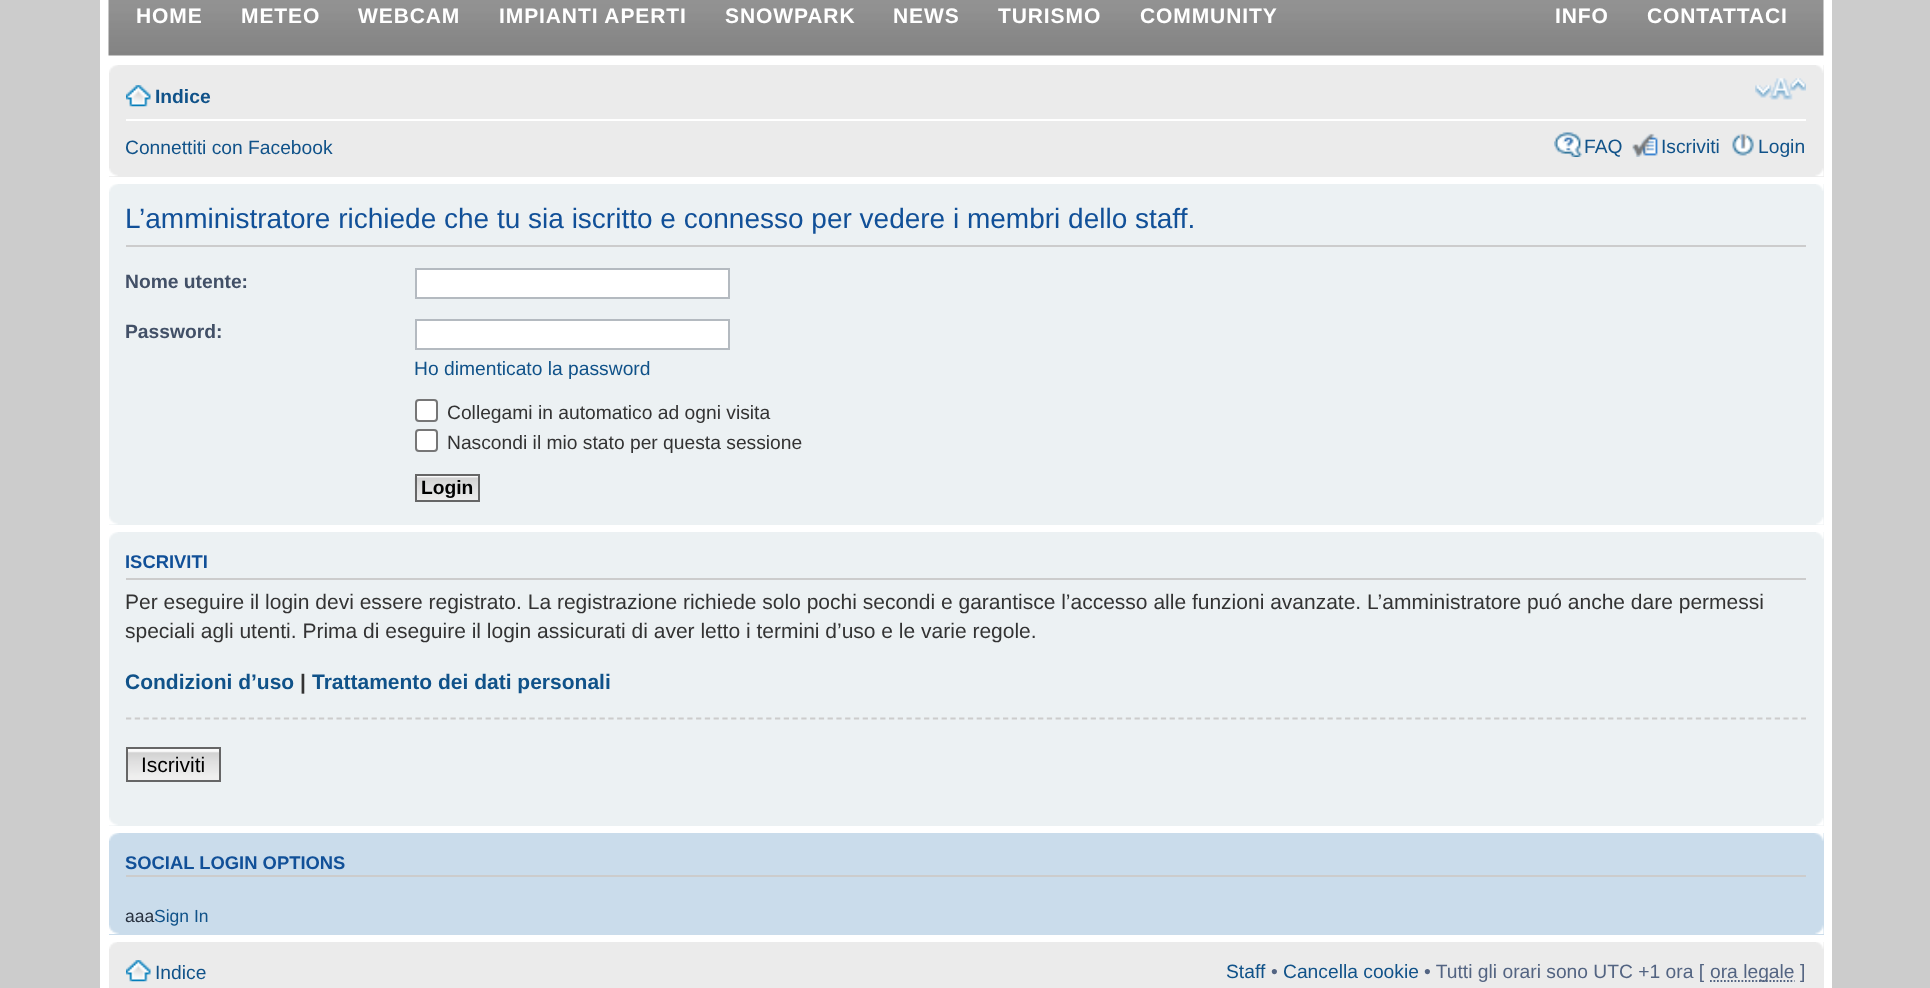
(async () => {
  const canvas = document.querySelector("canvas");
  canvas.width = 1930;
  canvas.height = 988;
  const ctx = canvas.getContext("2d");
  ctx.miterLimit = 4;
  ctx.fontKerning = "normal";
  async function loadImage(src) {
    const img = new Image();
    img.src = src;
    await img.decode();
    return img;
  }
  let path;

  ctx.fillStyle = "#cccccc";
  ctx.fillRect(0, 0, 1930, 988);
  ctx.fillStyle = "#ffffff";
  ctx.fillRect(100, 0, 1732, 988);
  ctx.drawImage(await loadImage("img/1.png"), 108, 0, 1716, 56);
  ctx.fillStyle = "#ebebeb";
  ctx.fillRect(109, 65, 1715, 112);
  ctx.drawImage(await loadImage("img/2.png"), 109, 65, 9, 8);
  ctx.drawImage(await loadImage("img/3.png"), 1816, 65, 8, 8);
  ctx.fillStyle = "#ffffff";
  ctx.fillRect(126, 119, 1680, 2);
  ctx.drawImage(await loadImage("img/4.png"), 126, 85, 25, 22);
  ctx.drawImage(await loadImage("img/5.png"), 1755, 78, 51, 22);
  ctx.drawImage(await loadImage("img/6.png"), 1554, 132, 28, 25);
  ctx.drawImage(await loadImage("img/7.png"), 1632, 133, 26, 24);
  ctx.drawImage(await loadImage("img/8.png"), 1732, 133, 22, 23);
  ctx.drawImage(await loadImage("img/9.png"), 109, 168, 9, 9);
  ctx.drawImage(await loadImage("img/10.png"), 1815, 168, 9, 9);
  ctx.fillStyle = "#ecf1f3";
  ctx.fillRect(109, 184, 1715, 341);
  ctx.drawImage(await loadImage("img/11.png"), 109, 184, 9, 8);
  ctx.drawImage(await loadImage("img/12.png"), 1816, 184, 8, 7);
  ctx.fillStyle = "#cccccc";
  ctx.fillRect(126, 245, 1680, 2);
  ctx.fillStyle = "#ffffff";
  ctx.beginPath();
  ctx.rect(416, 269, 313, 29);
  ctx.fill();
  ctx.strokeStyle = "#b4bac0";
  ctx.lineWidth = 2;
  ctx.stroke();
  ctx.beginPath();
  ctx.rect(416, 320, 313, 29);
  ctx.fill();
  ctx.stroke();
  ctx.beginPath();
  ctx.roundRect(416, 400, 21, 21, 3);
  ctx.fill();
  ctx.strokeStyle = "#767676";
  ctx.stroke();
  ctx.beginPath();
  ctx.roundRect(416, 430, 21, 21, 3);
  ctx.fill();
  ctx.stroke();
  ctx.fillStyle = "#fafafa";
  ctx.fillRect(417, 476, 61, 1);
  ctx.drawImage(await loadImage("img/13.png"), 414, 477, 64, 25);
  ctx.strokeStyle = "#666666";
  ctx.strokeRect(416, 475, 63, 26);
  ctx.drawImage(await loadImage("img/14.png"), 109, 516, 9, 9);
  ctx.drawImage(await loadImage("img/15.png"), 1816, 517, 8, 8);
  ctx.fillStyle = "#ecf1f3";
  ctx.fillRect(109, 532, 1715, 294);
  ctx.drawImage(await loadImage("img/16.png"), 109, 532, 9, 8);
  ctx.drawImage(await loadImage("img/17.png"), 1816, 532, 8, 7);
  ctx.fillStyle = "#cccccc";
  ctx.fillRect(126, 578, 1680, 2);
  path = new Path2D("M126 718.5H1806");
  ctx.strokeStyle = "#cccccc";
  ctx.lineWidth = 1.8;
  ctx.setLineDash([5.25, 3.52]);
  ctx.stroke(path);
  ctx.drawImage(await loadImage("img/18.png"), 128, 751, 91, 29);
  ctx.fillStyle = "#fafafa";
  ctx.fillRect(128, 749, 91, 2);
  ctx.strokeStyle = "#666666";
  ctx.lineWidth = 2;
  ctx.setLineDash([]);
  ctx.strokeRect(127, 748, 93, 33);
  ctx.drawImage(await loadImage("img/14.png"), 109, 817, 9, 9);
  ctx.drawImage(await loadImage("img/15.png"), 1816, 818, 8, 8);
  ctx.fillStyle = "#cadceb";
  ctx.fillRect(109, 833, 1715, 102);
  ctx.drawImage(await loadImage("img/19.png"), 109, 833, 10, 8);
  ctx.drawImage(await loadImage("img/20.png"), 1814, 833, 10, 8);
  ctx.fillStyle = "#cccccc";
  ctx.fillRect(126, 875, 1680, 2);
  ctx.drawImage(await loadImage("img/21.png"), 109, 925, 10, 9);
  ctx.drawImage(await loadImage("img/22.png"), 1815, 925, 9, 9);
  ctx.fillStyle = "#ebebeb";
  ctx.fillRect(109, 942, 1715, 46);
  ctx.drawImage(await loadImage("img/23.png"), 109, 942, 8, 7);
  ctx.drawImage(await loadImage("img/24.png"), 1816, 942, 8, 7);
  ctx.drawImage(await loadImage("img/4.png"), 126, 960, 25, 22);
  path = new Path2D("M1710 981H1794.5");
  ctx.strokeStyle = "#536482";
  ctx.lineWidth = 1.8;
  ctx.setLineDash([1.75, 1.75]);
  ctx.stroke(path);
  ctx.letterSpacing = "0.9px";
  ctx.font = "bold 21px Liberation Sans";
  ctx.fillStyle = "#ffffff";
  for (const [text, x, y] of [
    ["HOME", 136, 23],
    ["METEO", 241, 23],
    ["WEBCAM", 358, 23],
    ["IMPIANTI APERTI", 499, 23],
    ["SNOWPARK", 725, 23],
    ["NEWS", 893, 23],
    ["TURISMO", 998, 23],
    ["COMMUNITY", 1140, 23],
    ["INFO", 1555, 23],
    ["CONTATTACI", 1647, 23],
  ]) {
    ctx.fillText(text, x, y);
  }
  ctx.letterSpacing = "0px";
  ctx.font = "bold 19.25px Liberation Sans";
  ctx.fillStyle = "#105289";
  ctx.fillText("Indice", 155, 103);
  ctx.font = "19.25px Liberation Sans";
  for (const [text, x, y] of [
    ["Connettiti con Facebook", 125, 154],
    ["FAQ", 1584, 153],
    ["Iscriviti", 1661, 153],
    ["Login", 1758, 153],
  ]) {
    ctx.fillText(text, x, y);
  }
  ctx.font = "28px Liberation Sans";
  ctx.fillStyle = "#115098";
  ctx.fillText("L’amministratore richiede che tu sia iscritto e connesso per vedere i membri dello staff.", 125, 228);
  ctx.font = "bold 19.25px Liberation Sans";
  ctx.fillStyle = "#425067";
  ctx.fillText("Nome utente:", 125, 288);
  ctx.fillText("Password:", 125, 338);
  ctx.font = "19.25px Liberation Sans";
  ctx.fillStyle = "#105289";
  ctx.fillText("Ho dimenticato la password", 414, 375);
  ctx.fillStyle = "#333333";
  ctx.fillText("Collegami in automatico ad ogni visita", 447, 419);
  ctx.fillText("Nascondi il mio stato per questa sessione", 447, 449);
  ctx.font = "bold 19.25px Liberation Sans";
  ctx.fillStyle = "#000000";
  ctx.fillText("Login", 421, 494);
  ctx.font = "bold 18.4px Liberation Sans";
  ctx.fillStyle = "#115098";
  ctx.fillText("ISCRIVITI", 125, 568);
  ctx.font = "21px Liberation Sans";
  ctx.fillStyle = "#333333";
  ctx.fillText("Per eseguire il login devi essere registrato. La registrazione richiede solo pochi secondi e garantisce l’accesso alle funzioni avanzate. L’amministratore puó anche dare permessi", 125, 609);
  ctx.fillText("speciali agli utenti. Prima di eseguire il login assicurati di aver letto i termini d’uso e le varie regole.", 125, 638);
  ctx.font = "bold 21px Liberation Sans";
  ctx.fillStyle = "#105289";
  ctx.fillText("Condizioni d’uso", 125, 689);
  ctx.fillStyle = "#333333";
  ctx.fillText("|", 300, 689);
  ctx.fillStyle = "#105289";
  ctx.fillText("Trattamento dei dati personali", 312, 689);
  ctx.font = "21px Liberation Sans";
  ctx.fillStyle = "#000000";
  ctx.fillText("Iscriviti", 141, 772);
  ctx.font = "bold 18.4px Liberation Sans";
  ctx.fillStyle = "#115098";
  ctx.fillText("SOCIAL LOGIN OPTIONS", 125, 869);
  ctx.font = "17.5px Liberation Sans";
  ctx.fillStyle = "#28313f";
  ctx.fillText("aaa", 125, 922);
  ctx.fillStyle = "#105289";
  ctx.fillText("Sign In", 154, 922);
  ctx.font = "19.25px Liberation Sans";
  ctx.fillText("Indice", 155, 979);
  ctx.fillText("Staff", 1226, 978);
  ctx.fillStyle = "#536482";
  ctx.fillText("•", 1271, 978);
  ctx.fillStyle = "#105289";
  ctx.fillText("Cancella cookie", 1283, 978);
  ctx.fillStyle = "#536482";
  ctx.fillText("• Tutti gli orari sono UTC +1 ora [", 1424, 978);
  ctx.fillText("ora legale ]", 1710, 978);
})();
